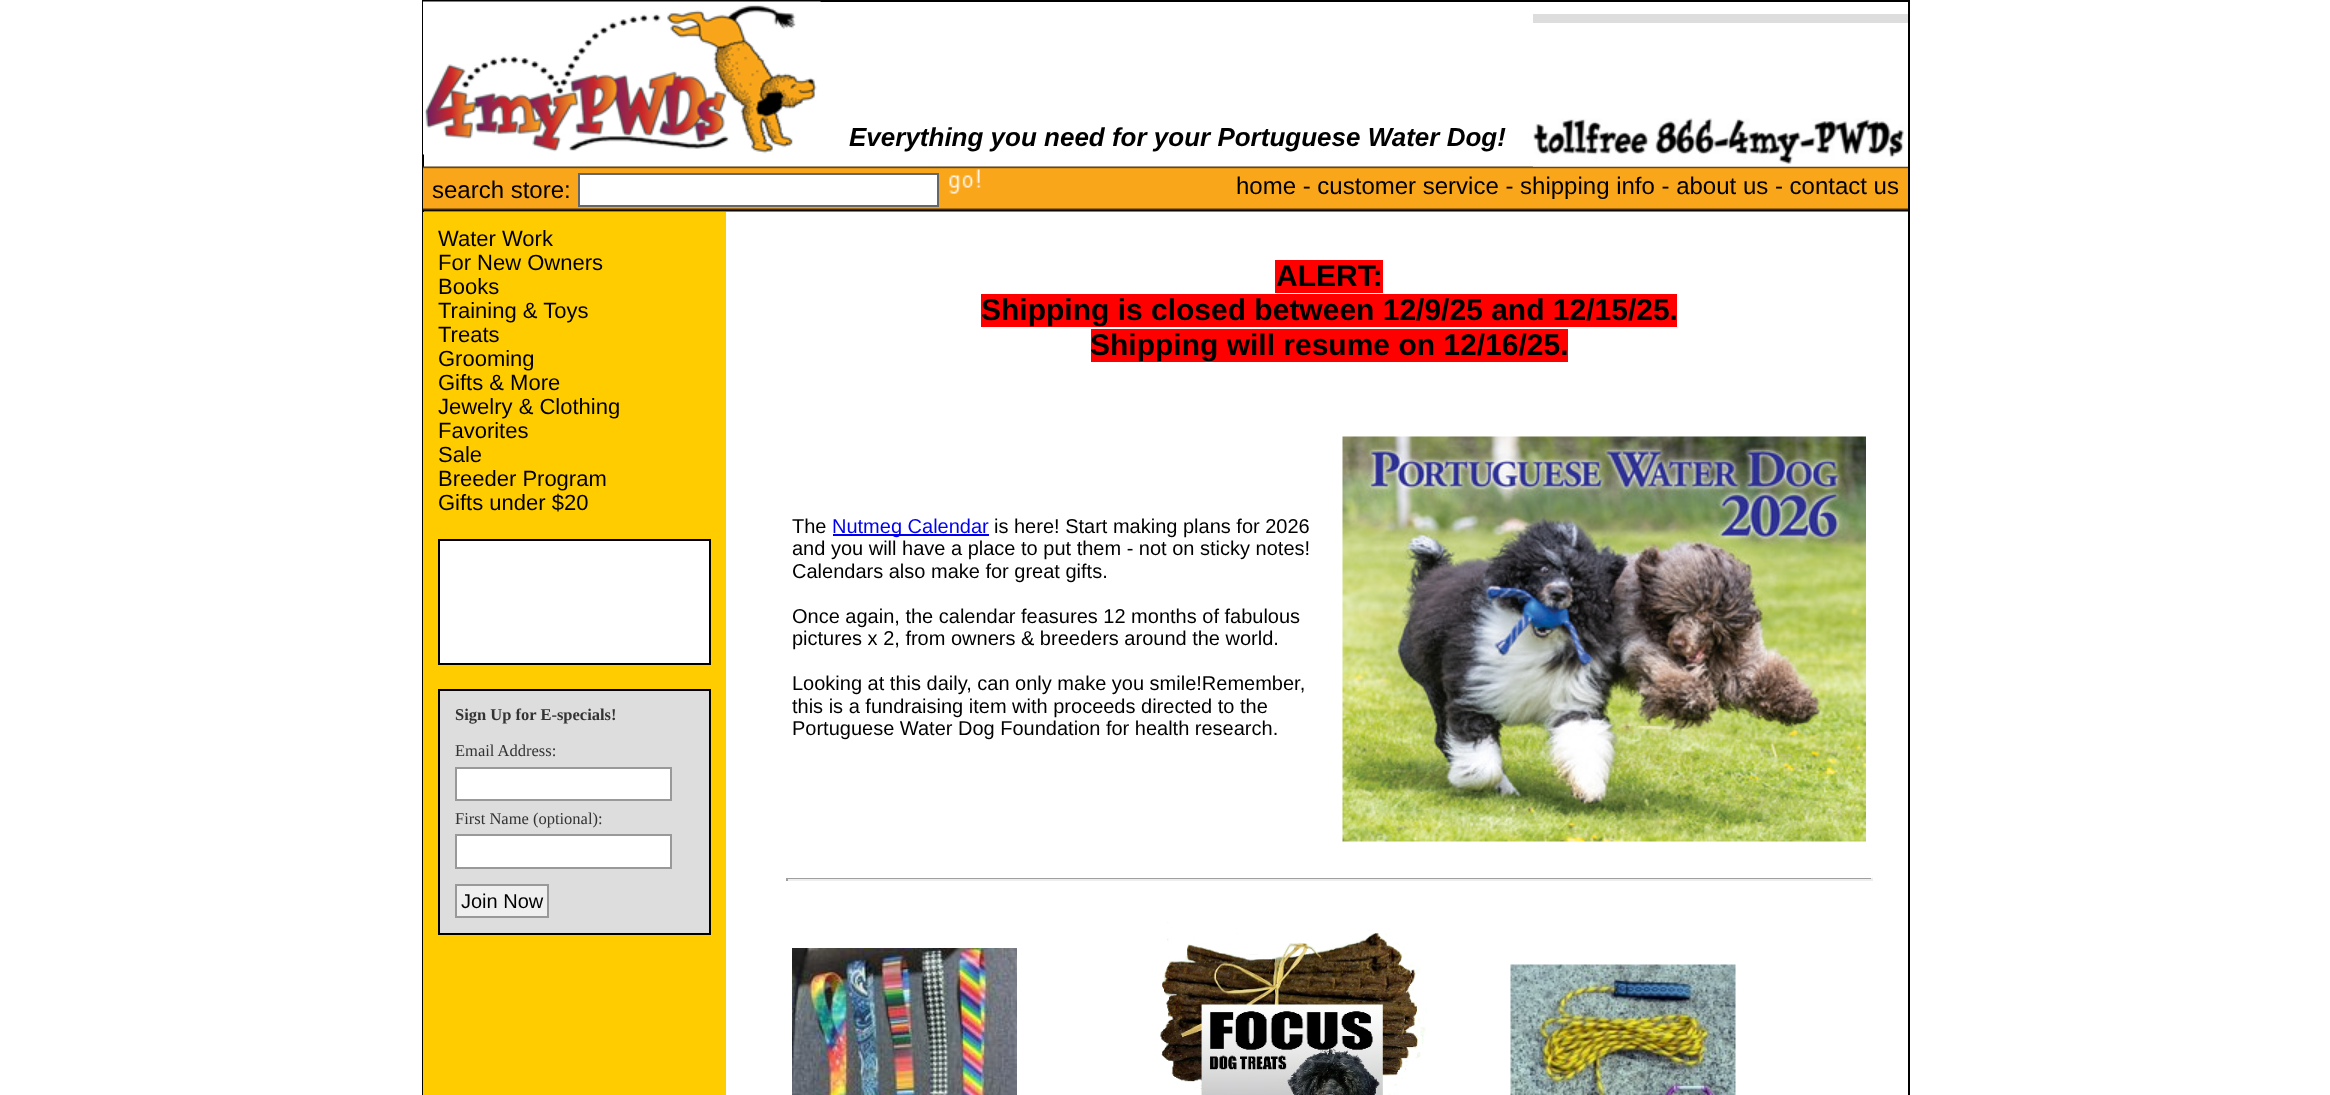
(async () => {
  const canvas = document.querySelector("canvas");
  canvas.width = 2330;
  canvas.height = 1095;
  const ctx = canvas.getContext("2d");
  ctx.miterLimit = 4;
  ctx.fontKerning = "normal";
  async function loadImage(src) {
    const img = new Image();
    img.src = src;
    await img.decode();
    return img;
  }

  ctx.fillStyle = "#ffffff";
  ctx.fillRect(0, 0, 2330, 1095);
  ctx.strokeStyle = "#000000";
  ctx.lineWidth = 2;
  ctx.strokeRect(423, 1, 1486, 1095);
  ctx.drawImage(await loadImage("img/1.png"), 423, 1, 398, 154);
  ctx.fillStyle = "#dddddd";
  ctx.fillRect(1533, 14, 375, 9);
  ctx.drawImage(await loadImage("img/3.png"), 423, 166, 1485, 46);
  ctx.drawImage(await loadImage("img/2.png"), 1533, 118, 375, 49);
  ctx.fillStyle = "#ffffff";
  ctx.beginPath();
  ctx.rect(579, 174, 359, 32);
  ctx.fill();
  ctx.strokeStyle = "#666666";
  ctx.stroke();
  ctx.drawImage(await loadImage("img/4.png"), 949, 169, 33, 25);
  ctx.fillStyle = "#ffcc00";
  ctx.fillRect(423, 212, 303, 883);
  ctx.fillStyle = "#ffffff";
  ctx.beginPath();
  ctx.rect(439, 540, 271, 124);
  ctx.fill();
  ctx.strokeStyle = "#000000";
  ctx.stroke();
  ctx.fillStyle = "#dddddd";
  ctx.beginPath();
  ctx.rect(439, 690, 271, 244);
  ctx.fill();
  ctx.stroke();
  ctx.fillStyle = "#ffffff";
  ctx.beginPath();
  ctx.rect(456, 768, 215, 32);
  ctx.fill();
  ctx.strokeStyle = "#999999";
  ctx.stroke();
  ctx.beginPath();
  ctx.rect(456, 835, 215, 33);
  ctx.fill();
  ctx.stroke();
  ctx.fillStyle = "#efefef";
  ctx.beginPath();
  ctx.rect(456, 885, 92, 32);
  ctx.fill();
  ctx.stroke();
  for (const [x, y, w, h, color] of [
    [1275, 260, 108, 33, "#ff0000"],
    [981, 294, 696, 33, "#ff0000"],
    [1091, 329, 477, 33, "#ff0000"],
    [833, 534, 156, 2, "#0000ee"],
  ]) {
    ctx.fillStyle = color;
    ctx.fillRect(x, y, w, h);
  }
  ctx.drawImage(await loadImage("img/5.png"), 1342, 436, 524, 406);
  for (const [x, y, w, h, color] of [
    [786, 878, 1086, 1, "#9f9f9f"],
    [1871, 878, 2, 3, "#eeeeee"],
    [786, 879, 1086, 2, "#eeeeee"],
    [786, 878, 2, 3, "#9f9f9f"],
  ]) {
    ctx.fillStyle = color;
    ctx.fillRect(x, y, w, h);
  }
  ctx.drawImage(await loadImage("img/6.png"), 792, 948, 225, 147);
  ctx.drawImage(await loadImage("img/7.png"), 1159, 922, 268, 173);
  ctx.drawImage(await loadImage("img/8.png"), 1510, 964, 226, 131);
  ctx.font = "italic bold 26px Liberation Sans";
  ctx.fillStyle = "#000000";
  ctx.fillText("Everything you need for your Portuguese Water Dog!", 849, 146);
  ctx.font = "24px Liberation Sans";
  ctx.fillText("search store:", 432, 198);
  ctx.fillText("home - customer service - shipping info - about us - contact us", 1236, 194);
  ctx.font = "22px Liberation Sans";
  for (const [text, x, y] of [
    ["Water Work", 438, 246],
    ["For New Owners", 438, 270],
    ["Books", 438, 294],
    ["Training & Toys", 438, 318],
    ["Treats", 438, 342],
    ["Grooming", 438, 366],
    ["Gifts & More", 438, 390],
    ["Jewelry & Clothing", 438, 414],
    ["Favorites", 438, 438],
    ["Sale", 438, 462],
    ["Breeder Program", 438, 486],
    ["Gifts under $20", 438, 510],
  ]) {
    ctx.fillText(text, x, y);
  }
  ctx.font = "bold 16.5px Liberation Serif";
  ctx.fillStyle = "#333333";
  ctx.fillText("Sign Up for E-specials!", 455, 720);
  ctx.font = "16.5px Liberation Serif";
  ctx.fillText("Email Address:", 455, 756);
  ctx.fillText("First Name (optional):", 455, 824);
  ctx.font = "20px Liberation Sans";
  ctx.fillStyle = "#000000";
  ctx.fillText("Join Now", 461, 908);
  ctx.font = "bold 30px Liberation Sans";
  for (const [text, x, y] of [
    ["ALERT:", 1276, 286],
    ["Shipping is closed between 12/9/25 and 12/15/25.", 981, 320],
    ["Shipping will resume on 12/16/25.", 1090, 355],
  ]) {
    ctx.fillText(text, x, y);
  }
  ctx.font = "20px Liberation Sans";
  ctx.fillText("The", 792, 533);
  ctx.fillStyle = "#0000ee";
  ctx.fillText("Nutmeg Calendar", 832, 533);
  ctx.fillStyle = "#000000";
  for (const [text, x, y] of [
    ["is here! Start making plans for 2026", 994, 533],
    ["and you will have a place to put them - not on sticky notes!", 792, 555],
    ["Calendars also make for great gifts.", 792, 578],
    ["Once again, the calendar feasures 12 months of fabulous", 792, 623],
    ["pictures x 2, from owners & breeders around the world.", 792, 645],
    ["Looking at this daily, can only make you smile!Remember,", 792, 690],
    ["this is a fundraising item with proceeds directed to the", 792, 713],
    ["Portuguese Water Dog Foundation for health research.", 792, 735],
  ]) {
    ctx.fillText(text, x, y);
  }
})();
